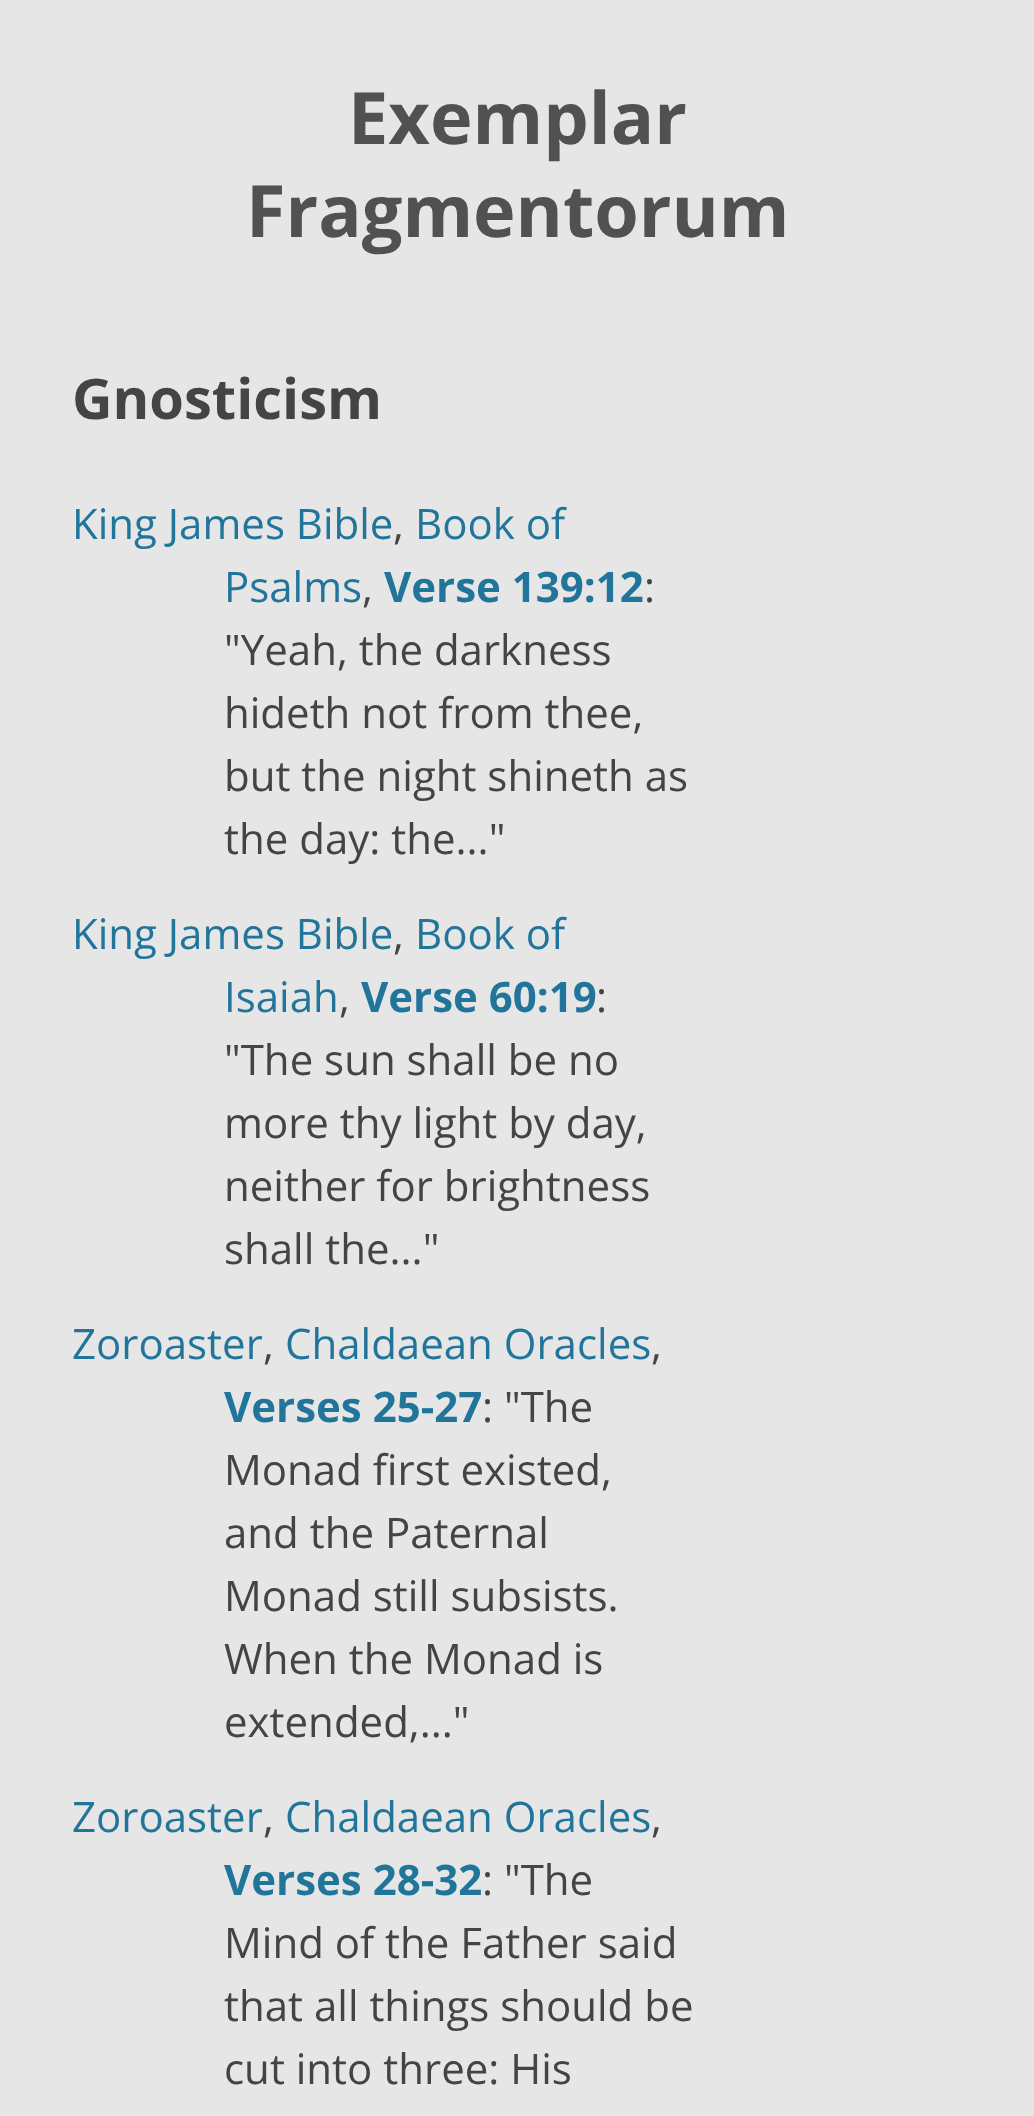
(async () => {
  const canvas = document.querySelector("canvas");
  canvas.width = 1034;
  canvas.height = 2116;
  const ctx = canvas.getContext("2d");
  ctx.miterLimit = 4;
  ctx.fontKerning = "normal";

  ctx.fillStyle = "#e6e6e6";
  ctx.fillRect(0, 0, 1034, 2116);
  ctx.font = "bold 72px Open Sans";
  ctx.fillStyle = "#515151";
  ctx.fillText("Exemplar", 348, 144);
  ctx.fillText("Fragmentorum", 246, 237);
  ctx.font = "bold 56px Open Sans";
  ctx.fillStyle = "#444444";
  ctx.fillText("Gnosticism", 72, 419);
  ctx.font = "42px Open Sans";
  ctx.fillStyle = "#21759b";
  ctx.fillText("King James Bible", 72, 539);
  ctx.fillStyle = "#444444";
  ctx.fillText(",", 393, 539);
  ctx.fillStyle = "#21759b";
  ctx.fillText("Book of", 415, 539);
  ctx.fillText("Psalms", 224, 602);
  ctx.fillStyle = "#444444";
  ctx.fillText(",", 362, 602);
  ctx.font = "bold 42px Open Sans";
  ctx.fillStyle = "#21759b";
  ctx.fillText("Verse 139:12", 384, 602);
  ctx.font = "42px Open Sans";
  ctx.fillStyle = "#444444";
  for (const [text, x, y] of [
    [":", 644, 602],
    ["\"Yeah, the darkness", 224, 665],
    ["hideth not from thee,", 224, 728],
    ["but the night shineth as", 224, 791],
    ["the day: the...\"", 224, 854],
  ]) {
    ctx.fillText(text, x, y);
  }
  ctx.fillStyle = "#21759b";
  ctx.fillText("King James Bible", 72, 949);
  ctx.fillStyle = "#444444";
  ctx.fillText(",", 393, 949);
  ctx.fillStyle = "#21759b";
  ctx.fillText("Book of", 415, 949);
  ctx.fillText("Isaiah", 224, 1012);
  ctx.fillStyle = "#444444";
  ctx.fillText(",", 339, 1012);
  ctx.font = "bold 42px Open Sans";
  ctx.fillStyle = "#21759b";
  ctx.fillText("Verse 60:19", 361, 1012);
  ctx.font = "42px Open Sans";
  ctx.fillStyle = "#444444";
  for (const [text, x, y] of [
    [":", 596, 1012],
    ["\"The sun shall be no", 224, 1075],
    ["more thy light by day,", 224, 1138],
    ["neither for brightness", 224, 1201],
    ["shall the...\"", 224, 1264],
  ]) {
    ctx.fillText(text, x, y);
  }
  ctx.fillStyle = "#21759b";
  ctx.fillText("Zoroaster", 72, 1359);
  ctx.fillStyle = "#444444";
  ctx.fillText(",", 263, 1359);
  ctx.fillStyle = "#21759b";
  ctx.fillText("Chaldaean Oracles", 285, 1359);
  ctx.fillStyle = "#444444";
  ctx.fillText(",", 651, 1359);
  ctx.font = "bold 42px Open Sans";
  ctx.fillStyle = "#21759b";
  ctx.fillText("Verses 25-27", 224, 1422);
  ctx.font = "42px Open Sans";
  ctx.fillStyle = "#444444";
  for (const [text, x, y] of [
    [": \"The", 482, 1422],
    ["Monad first existed,", 224, 1485],
    ["and the Paternal", 224, 1548],
    ["Monad still subsists.", 224, 1611],
    ["When the Monad is", 224, 1674],
    ["extended,...\"", 224, 1737],
  ]) {
    ctx.fillText(text, x, y);
  }
  ctx.fillStyle = "#21759b";
  ctx.fillText("Zoroaster", 72, 1832);
  ctx.fillStyle = "#444444";
  ctx.fillText(",", 263, 1832);
  ctx.fillStyle = "#21759b";
  ctx.fillText("Chaldaean Oracles", 285, 1832);
  ctx.fillStyle = "#444444";
  ctx.fillText(",", 651, 1832);
  ctx.font = "bold 42px Open Sans";
  ctx.fillStyle = "#21759b";
  ctx.fillText("Verses 28-32", 224, 1895);
  ctx.font = "42px Open Sans";
  ctx.fillStyle = "#444444";
  for (const [text, x, y] of [
    [": \"The", 482, 1895],
    ["Mind of the Father said", 224, 1958],
    ["that all things should be", 224, 2021],
    ["cut into three: His", 224, 2084],
  ]) {
    ctx.fillText(text, x, y);
  }
})();
